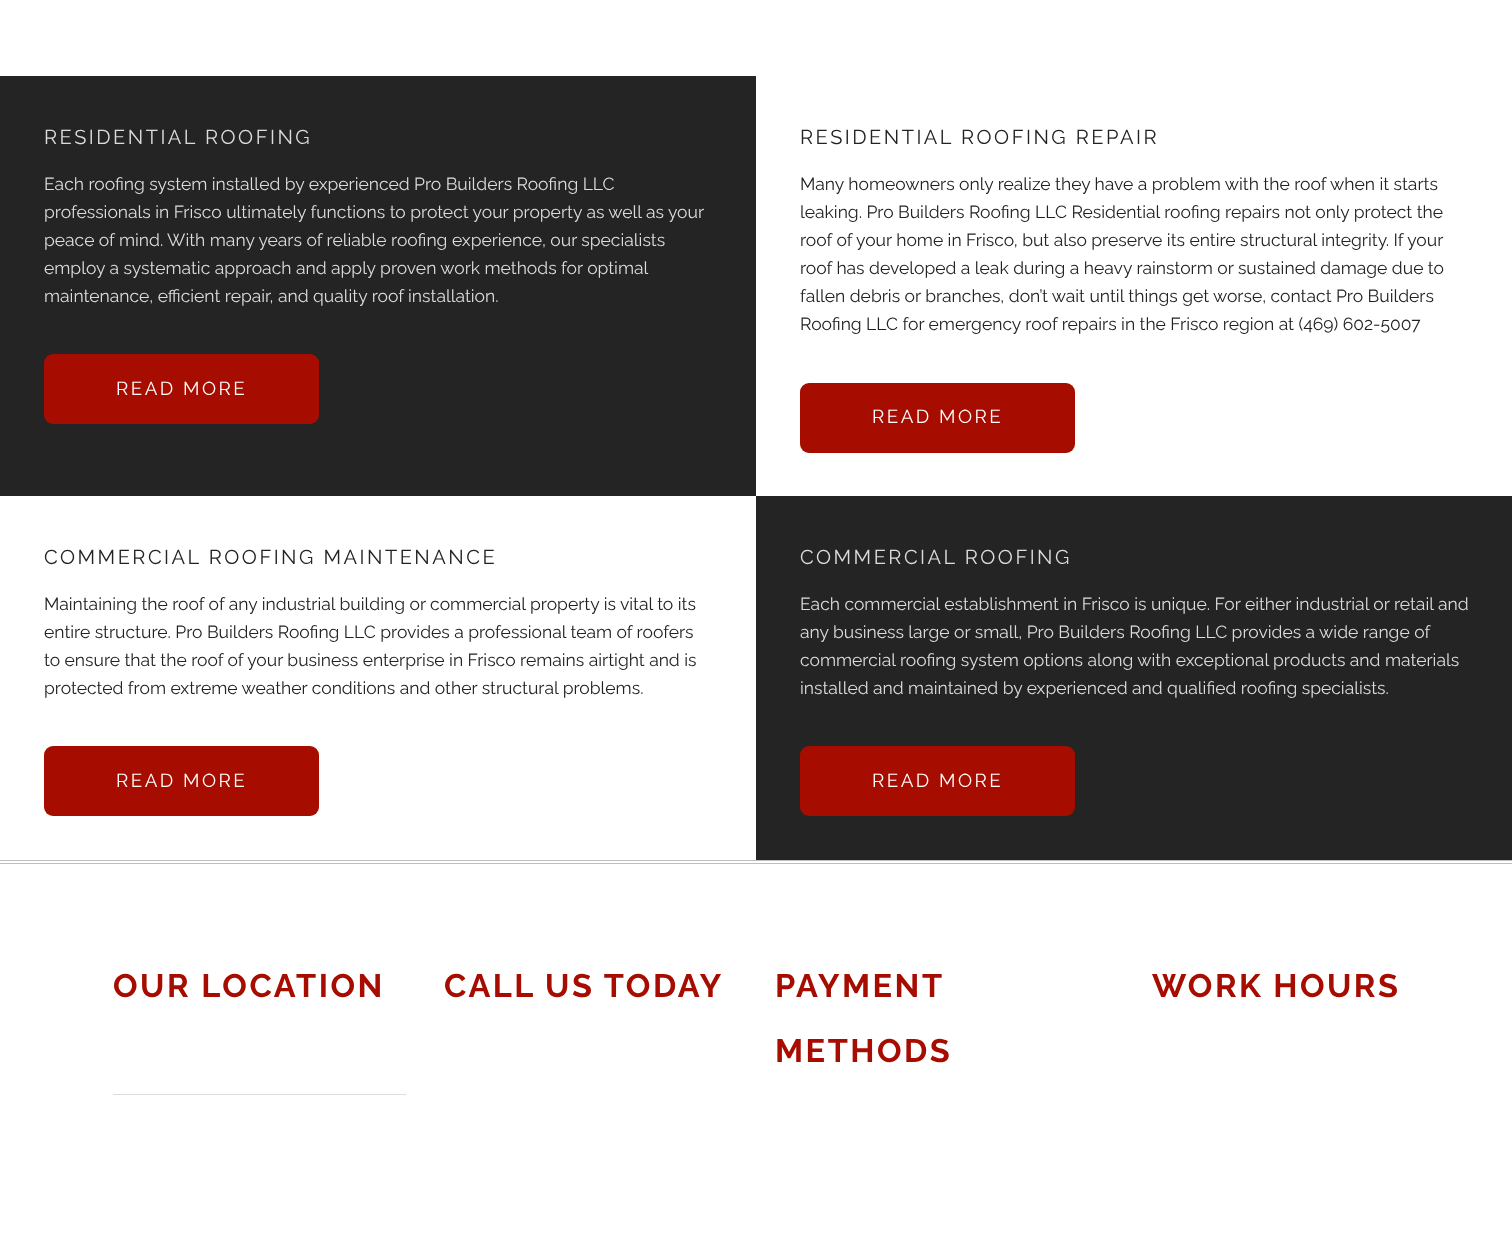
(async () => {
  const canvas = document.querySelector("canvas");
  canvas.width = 1512;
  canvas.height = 1242;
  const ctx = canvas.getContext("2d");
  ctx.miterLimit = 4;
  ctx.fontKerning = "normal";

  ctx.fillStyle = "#ffffff";
  ctx.fillRect(0, 0, 1512, 1242);
  ctx.fillStyle = "#242424";
  ctx.fillRect(0, 76, 756, 420);
  ctx.fillStyle = "#a70c00";
  ctx.beginPath();
  ctx.roundRect(44, 354, 275, 70, 9);
  ctx.fill();
  ctx.beginPath();
  ctx.roundRect(800, 383, 275, 70, 9);
  ctx.fill();
  ctx.beginPath();
  ctx.roundRect(44, 746, 275, 70, 9);
  ctx.fill();
  ctx.fillStyle = "#242424";
  ctx.fillRect(756, 496, 756, 364);
  ctx.fillStyle = "#a70c00";
  ctx.beginPath();
  ctx.roundRect(800, 746, 275, 70, 9);
  ctx.fill();
  for (const [x, y, w, h, color] of [
    [0, 860, 1512, 1, "#bebebe"],
    [0, 863, 1512, 1, "#bebebe"],
    [113, 1094, 293, 1, "#dddddd"],
  ]) {
    ctx.fillStyle = color;
    ctx.fillRect(x, y, w, h);
  }
  ctx.letterSpacing = "2.5px";
  ctx.font = "20px Raleway";
  ctx.fillStyle = "#dcdcdc";
  ctx.fillText("RESIDENTIAL ROOFING", 44, 144);
  ctx.letterSpacing = "0px";
  ctx.font = "17.5px Raleway";
  for (const [text, x, y] of [
    ["Each roofing system installed by experienced Pro Builders Roofing LLC", 44, 190],
    ["professionals in Frisco ultimately functions to protect your property as well as your", 44, 218],
    ["peace of mind. With many years of reliable roofing experience, our specialists", 44, 246],
    ["employ a systematic approach and apply proven work methods for optimal", 44, 274],
    ["maintenance, efficient repair, and quality roof installation.", 44, 302],
  ]) {
    ctx.fillText(text, x, y);
  }
  ctx.letterSpacing = "2.5px";
  ctx.font = "18.75px Raleway";
  ctx.fillStyle = "#ffffff";
  ctx.fillText("READ MORE", 116, 395);
  ctx.font = "20px Raleway";
  ctx.fillStyle = "#222222";
  ctx.fillText("RESIDENTIAL ROOFING REPAIR", 800, 144);
  ctx.letterSpacing = "0px";
  ctx.font = "17.5px Raleway";
  for (const [text, x, y] of [
    ["Many homeowners only realize they have a problem with the roof when it starts", 800, 190],
    ["leaking. Pro Builders Roofing LLC Residential roofing repairs not only protect the", 800, 218],
    ["roof of your home in Frisco, but also preserve its entire structural integrity. If your", 800, 246],
    ["roof has developed a leak during a heavy rainstorm or sustained damage due to", 800, 274],
    ["fallen debris or branches, don’t wait until things get worse, contact Pro Builders", 800, 302],
    ["Roofing LLC for emergency roof repairs in the Frisco region at (469) 602-5007", 800, 330],
  ]) {
    ctx.fillText(text, x, y);
  }
  ctx.letterSpacing = "2.5px";
  ctx.font = "18.75px Raleway";
  ctx.fillStyle = "#ffffff";
  ctx.fillText("READ MORE", 872, 423);
  ctx.font = "20px Raleway";
  ctx.fillStyle = "#222222";
  ctx.fillText("COMMERCIAL ROOFING MAINTENANCE", 44, 564);
  ctx.letterSpacing = "0px";
  ctx.font = "17.5px Raleway";
  for (const [text, x, y] of [
    ["Maintaining the roof of any industrial building or commercial property is vital to its", 44, 610],
    ["entire structure. Pro Builders Roofing LLC provides a professional team of roofers", 44, 638],
    ["to ensure that the roof of your business enterprise in Frisco remains airtight and is", 44, 666],
    ["protected from extreme weather conditions and other structural problems.", 44, 694],
  ]) {
    ctx.fillText(text, x, y);
  }
  ctx.letterSpacing = "2.5px";
  ctx.font = "18.75px Raleway";
  ctx.fillStyle = "#ffffff";
  ctx.fillText("READ MORE", 116, 787);
  ctx.font = "20px Raleway";
  ctx.fillStyle = "#dcdcdc";
  ctx.fillText("COMMERCIAL ROOFING", 800, 564);
  ctx.letterSpacing = "0px";
  ctx.font = "17.5px Raleway";
  for (const [text, x, y] of [
    ["Each commercial establishment in Frisco is unique. For either industrial or retail and", 800, 610],
    ["any business large or small, Pro Builders Roofing LLC provides a wide range of", 800, 638],
    ["commercial roofing system options along with exceptional products and materials", 800, 666],
    ["installed and maintained by experienced and qualified roofing specialists.", 800, 694],
  ]) {
    ctx.fillText(text, x, y);
  }
  ctx.letterSpacing = "2.5px";
  ctx.font = "18.75px Raleway";
  ctx.fillStyle = "#ffffff";
  ctx.fillText("READ MORE", 872, 787);
  ctx.font = "bold 32.5px Raleway";
  ctx.fillStyle = "#a70c00";
  for (const [text, x, y] of [
    ["OUR LOCATION", 113, 997],
    ["CALL US TODAY", 444, 997],
    ["PAYMENT", 775, 997],
    ["METHODS", 775, 1062],
    ["WORK HOURS", 1152, 997],
  ]) {
    ctx.fillText(text, x, y);
  }
})();
